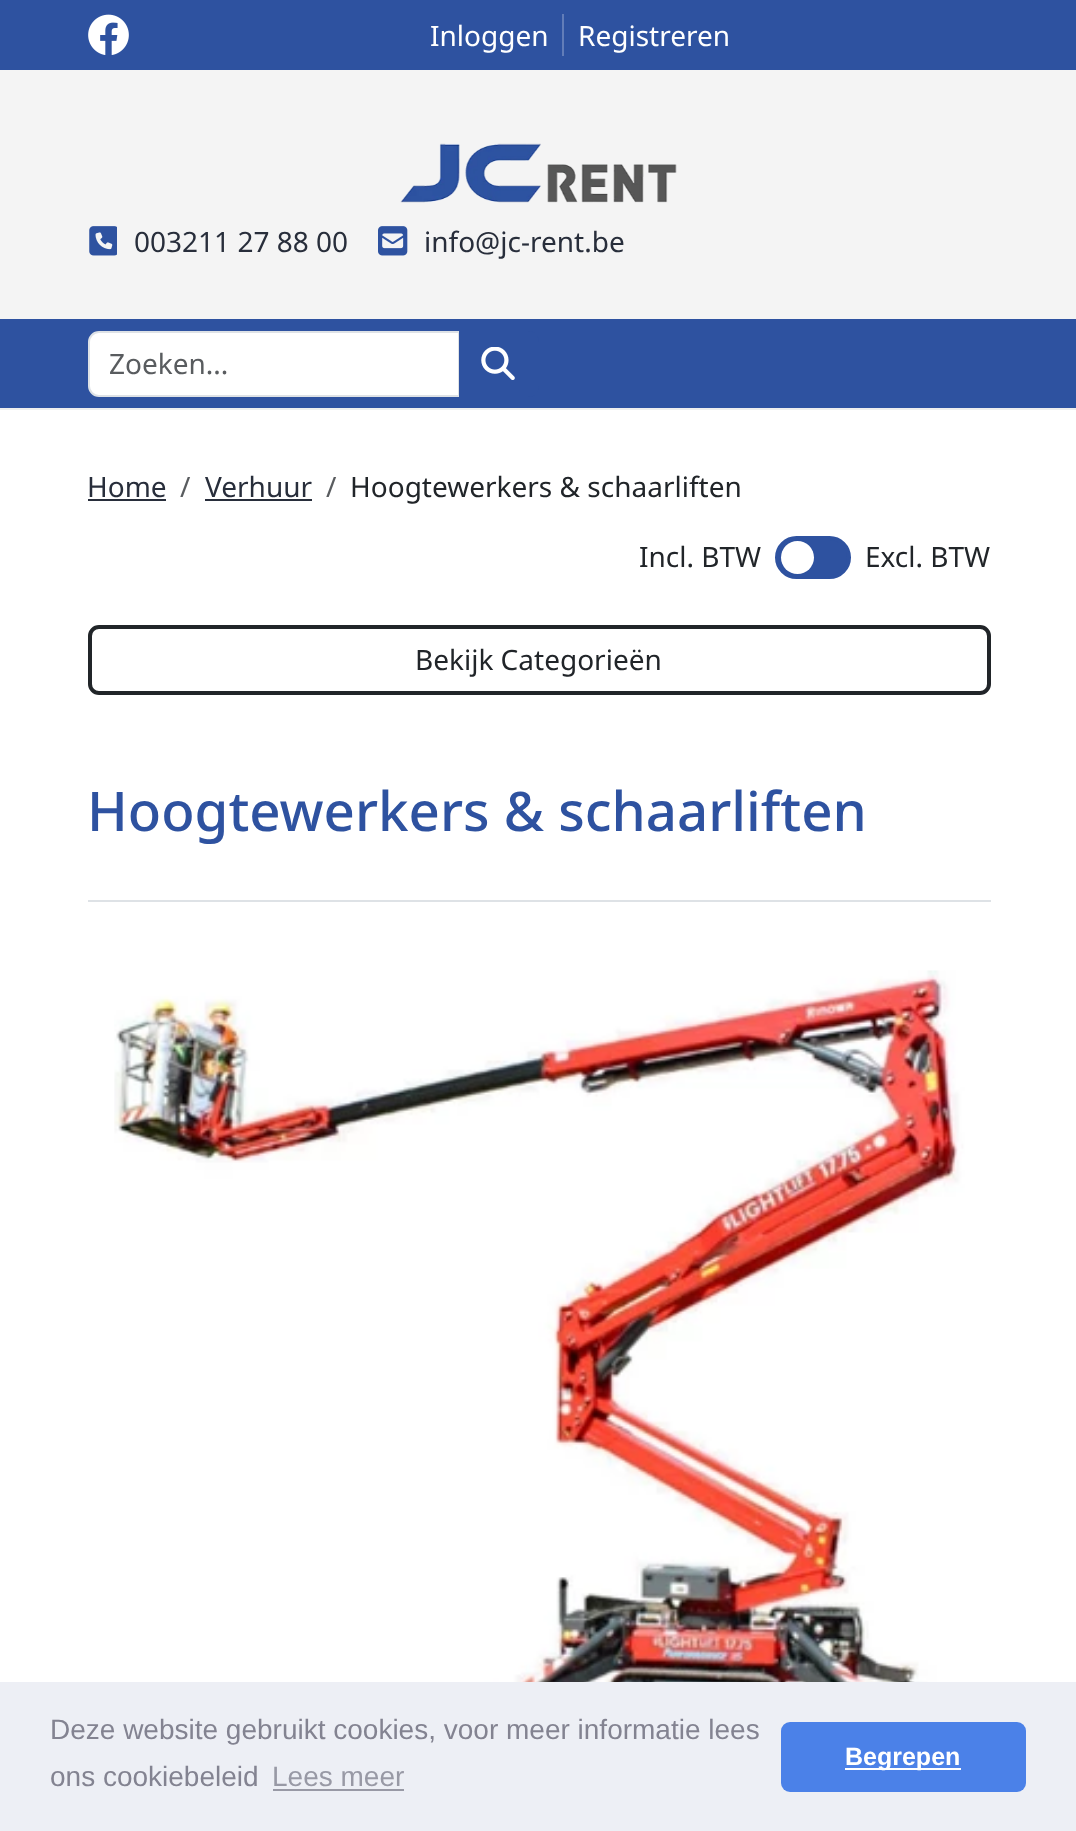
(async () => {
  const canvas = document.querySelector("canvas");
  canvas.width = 1076;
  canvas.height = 1831;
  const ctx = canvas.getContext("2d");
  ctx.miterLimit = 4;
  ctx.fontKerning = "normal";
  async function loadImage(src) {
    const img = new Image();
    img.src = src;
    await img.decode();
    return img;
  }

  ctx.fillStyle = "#ffffff";
  ctx.fillRect(0, 0, 1076, 1831);
  ctx.fillStyle = "#f4f4f4";
  ctx.fillRect(0, 70, 1076, 249);
  ctx.fillStyle = "#2e52a0";
  ctx.fillRect(0, 0, 1076, 70);
  ctx.drawImage(await loadImage("img/1.png"), 88, 14, 41, 41);
  ctx.fillStyle = "#627db8";
  ctx.fillRect(562, 14, 2, 42);
  ctx.fillStyle = "#eeeeee";
  ctx.fillRect(0, 408, 1076, 2);
  ctx.drawImage(await loadImage("img/2.png"), 400, 143, 277, 60);
  ctx.drawImage(await loadImage("img/3.png"), 89, 226, 28, 30);
  ctx.drawImage(await loadImage("img/4.png"), 378, 226, 30, 30);
  ctx.fillStyle = "#2e52a0";
  ctx.fillRect(0, 319, 1076, 89);
  ctx.fillStyle = "#ffffff";
  ctx.beginPath();
  ctx.roundRect(89, 332, 370, 64, [10, 0, 0, 10]);
  ctx.fill();
  ctx.strokeStyle = "#dee2e6";
  ctx.lineWidth = 2;
  ctx.stroke();
  ctx.fillStyle = "#2e52a0";
  ctx.beginPath();
  ctx.roundRect(459, 331, 80, 66, [0, 11, 11, 0]);
  ctx.fill();
  ctx.drawImage(await loadImage("img/5.png"), 481, 347, 34, 33);
  ctx.fillStyle = "#282e3b";
  ctx.fillRect(88, 499, 78, 2);
  ctx.fillRect(205, 499, 107, 2);
  ctx.fillStyle = "#2e52a0";
  ctx.beginPath();
  ctx.roundRect(777, 538, 72, 39, 19.5);
  ctx.fill();
  ctx.strokeStyle = "#2e52a0";
  ctx.lineWidth = 4;
  ctx.stroke();
  ctx.fillStyle = "#ffffff";
  ctx.beginPath();
  ctx.arc(797.5, 557.5, 16.5, 0, Math.PI * 2);
  ctx.fill();
  ctx.beginPath();
  ctx.roundRect(90, 627, 899, 66, 9);
  ctx.strokeStyle = "#212529";
  ctx.stroke();
  ctx.fillStyle = "#dee2e6";
  ctx.fillRect(88, 900, 903, 2);
  ctx.drawImage(await loadImage("img/6.png"), 114, 970, 851, 712);
  ctx.fillStyle = "#edeff5";
  ctx.fillRect(0, 1682, 1076, 149);
  ctx.fillStyle = "#9899a5";
  ctx.fillRect(273, 1789, 131, 2);
  ctx.fillStyle = "#4b81e8";
  ctx.beginPath();
  ctx.roundRect(781, 1722, 245, 70, 9);
  ctx.fill();
  ctx.fillStyle = "#ffffff";
  ctx.fillRect(845, 1768, 116, 2);
  ctx.font = "28px Noto Sans";
  ctx.fillText("Inloggen", 430, 46);
  ctx.fillText("Registreren", 578, 46);
  ctx.fillStyle = "#282e3b";
  ctx.fillText("003211 27 88 00", 134, 252);
  ctx.fillText("info@jc-rent.be", 424, 252);
  ctx.fillStyle = "#595c5f";
  ctx.fillText("Zoeken...", 109, 374);
  ctx.fillStyle = "#282e3b";
  ctx.fillText("Home", 87, 497);
  ctx.fillStyle = "#595c5f";
  ctx.fillText("/", 180, 497);
  ctx.fillStyle = "#282e3b";
  ctx.fillText("Verhuur", 205, 497);
  ctx.fillStyle = "#595c5f";
  ctx.fillText("/", 326, 497);
  ctx.fillStyle = "#212529";
  for (const [text, x, y] of [
    ["Hoogtewerkers & schaarliften", 350, 497],
    ["Incl. BTW", 639, 567],
    ["Excl. BTW", 865, 567],
    ["Bekijk Categorieën", 415, 670],
  ]) {
    ctx.fillText(text, x, y);
  }
  ctx.font = "500 54.6px Noto Sans";
  ctx.fillStyle = "#2e52a0";
  ctx.fillText("Hoogtewerkers & schaarliften", 87, 831);
  ctx.font = "28px Liberation Sans";
  ctx.fillStyle = "#838391";
  ctx.fillText("Deze website gebruikt cookies, voor meer informatie lees", 50, 1739);
  ctx.fillText("ons cookiebeleid", 50, 1786);
  ctx.fillStyle = "#9899a5";
  ctx.fillText("Lees meer", 272, 1786);
  ctx.font = "bold 25px Liberation Sans";
  ctx.fillStyle = "#ffffff";
  ctx.fillText("Begrepen", 845, 1765);
})();
